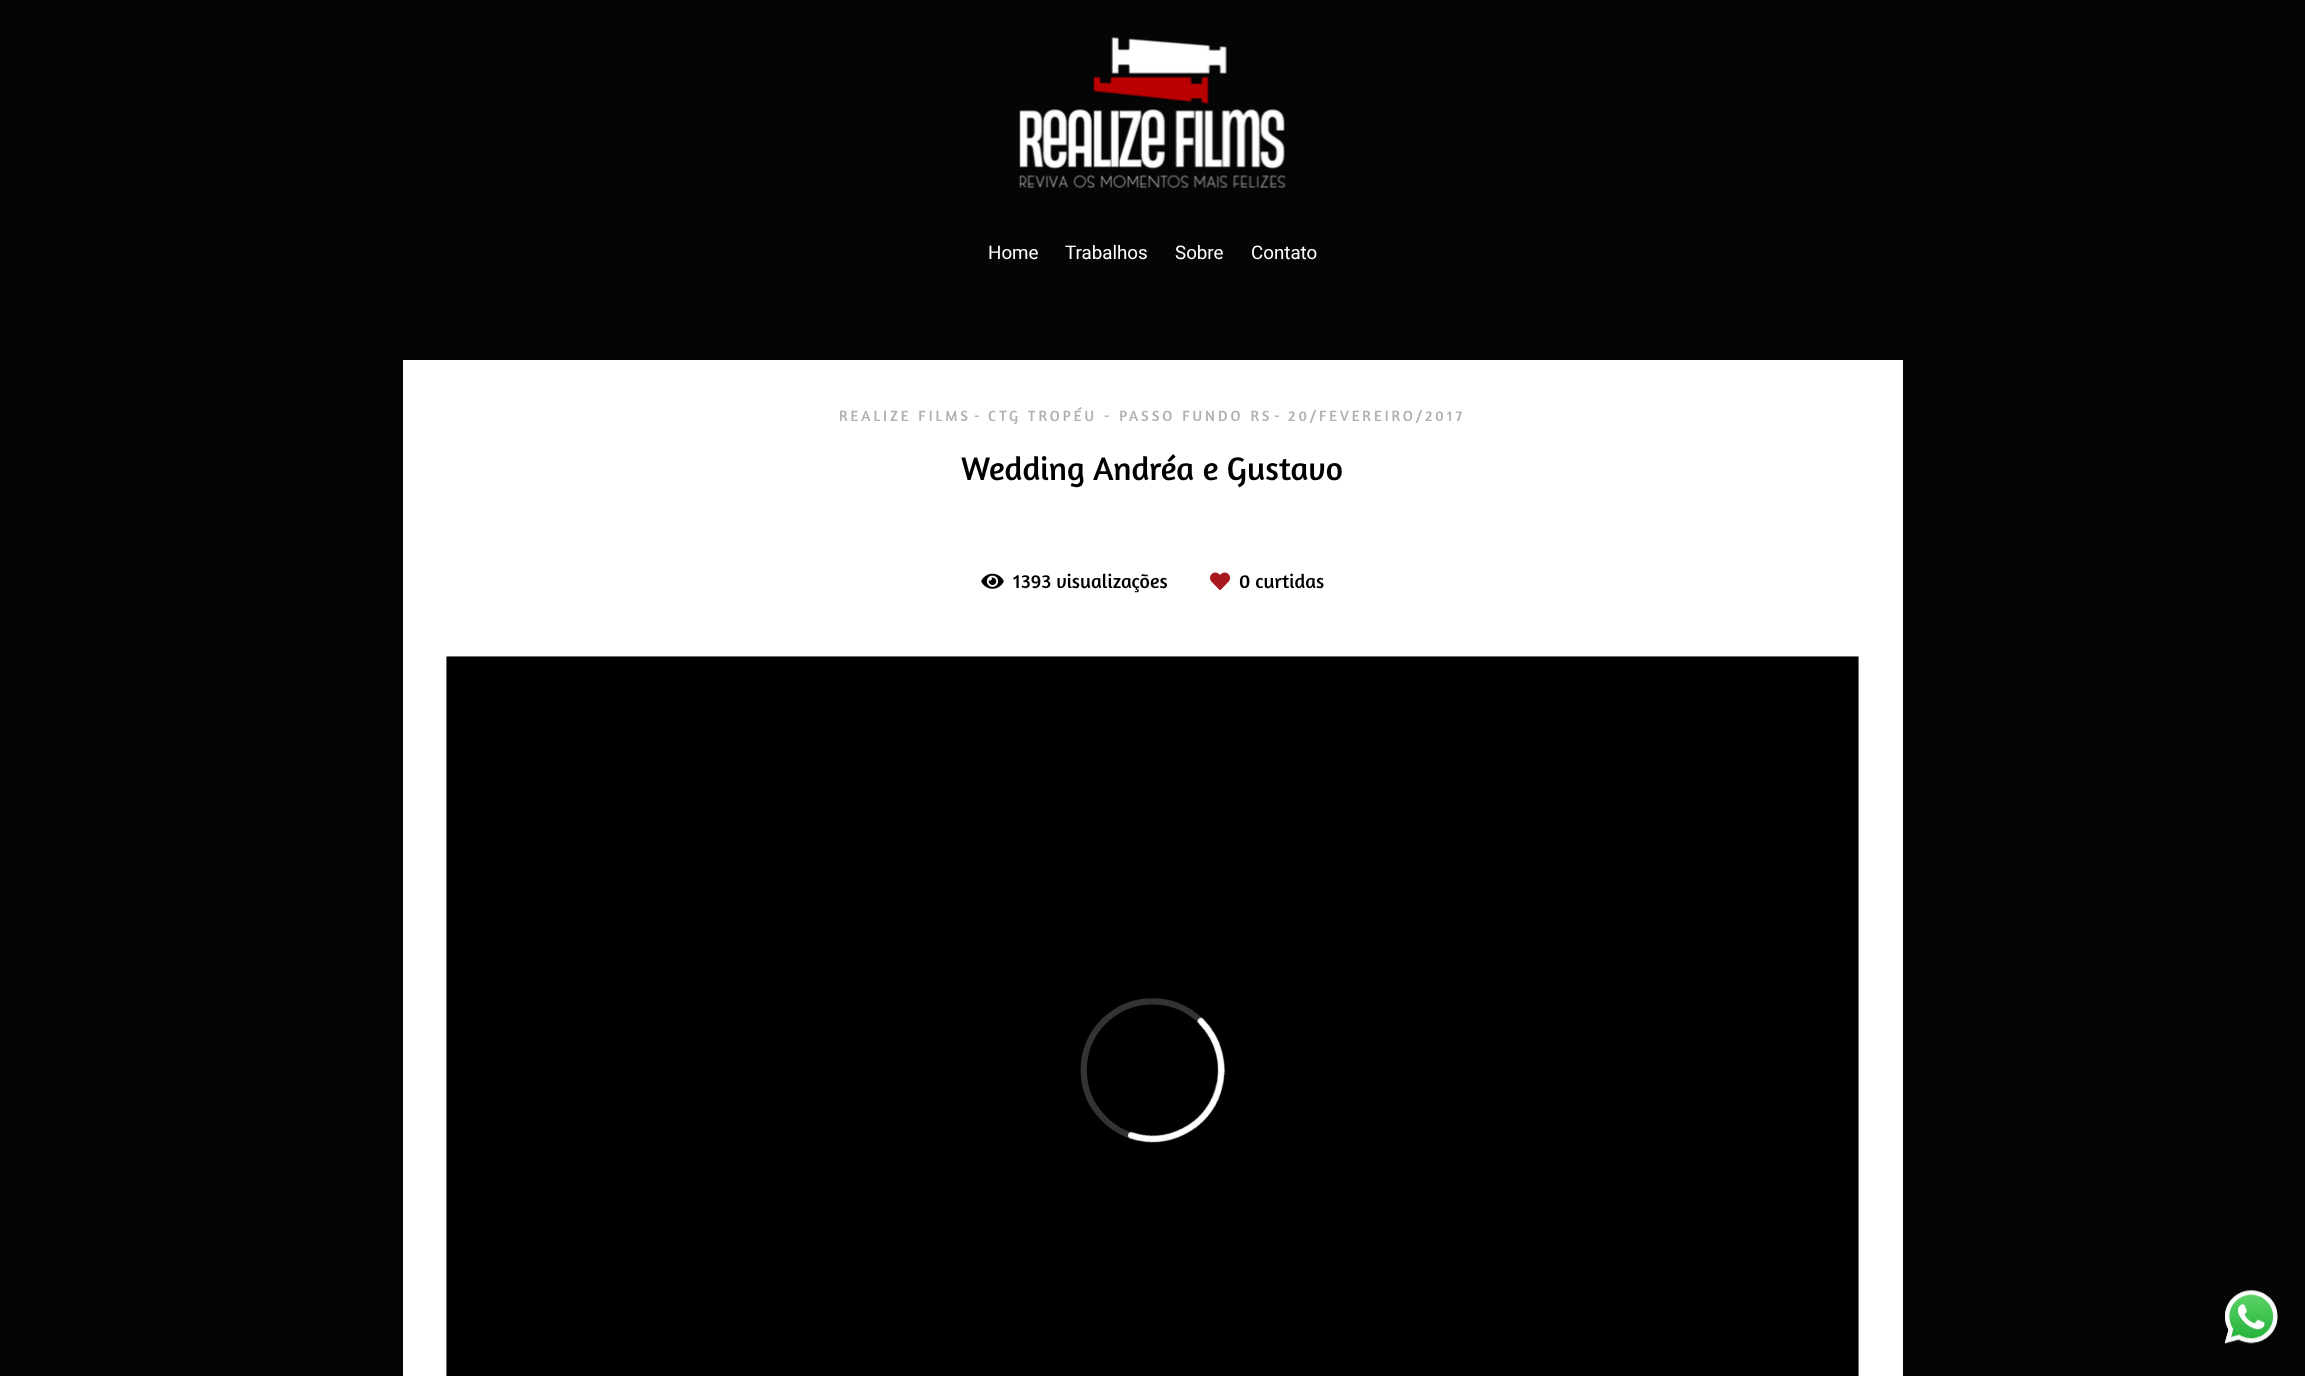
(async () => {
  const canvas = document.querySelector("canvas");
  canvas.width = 2305;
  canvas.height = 1376;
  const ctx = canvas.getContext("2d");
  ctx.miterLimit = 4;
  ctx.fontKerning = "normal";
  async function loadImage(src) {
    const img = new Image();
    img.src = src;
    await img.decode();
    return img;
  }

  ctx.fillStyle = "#050505";
  ctx.fillRect(0, 0, 2305, 1376);
  ctx.drawImage(await loadImage("img/1.png"), 1019, 37, 267, 151);
  ctx.fillStyle = "#ffffff";
  ctx.fillRect(403, 360, 1500, 1016);
  ctx.drawImage(await loadImage("img/2.png"), 981, 573, 23, 16);
  ctx.drawImage(await loadImage("img/3.png"), 1210, 572, 20, 18);
  ctx.drawImage(await loadImage("img/4.png"), 446, 656, 1413, 720);
  ctx.drawImage(await loadImage("img/5.png"), 2224, 1290, 54, 54);
  ctx.font = "18.75px Roboto";
  for (const [text, x, y] of [
    ["Home", 988, 259],
    ["Trabalhos", 1065, 259],
    ["Sobre", 1175, 259],
    ["Contato", 1251, 259],
  ]) {
    ctx.fillText(text, x, y);
  }
  ctx.letterSpacing = "3px";
  ctx.font = "15px Amaranth";
  ctx.fillStyle = "#b1b0af";
  for (const [text, x, y] of [
    ["REALIZE FILMS", 839, 421],
    ["-", 974, 421],
    ["CTG TROPÉU - PASSO FUNDO RS", 988, 421],
    ["-", 1274, 421],
    ["20/FEVEREIRO/2017", 1288, 421],
  ]) {
    ctx.fillText(text, x, y);
  }
  ctx.letterSpacing = "0px";
  ctx.font = "33.25px Amaranth";
  ctx.fillStyle = "#000000";
  ctx.fillText("Wedding Andréa e Gustavo", 961, 480);
  ctx.font = "20px Amaranth";
  ctx.fillText("1393 visualizações", 1013, 588);
  ctx.fillText("0 curtidas", 1239, 588);
})();
